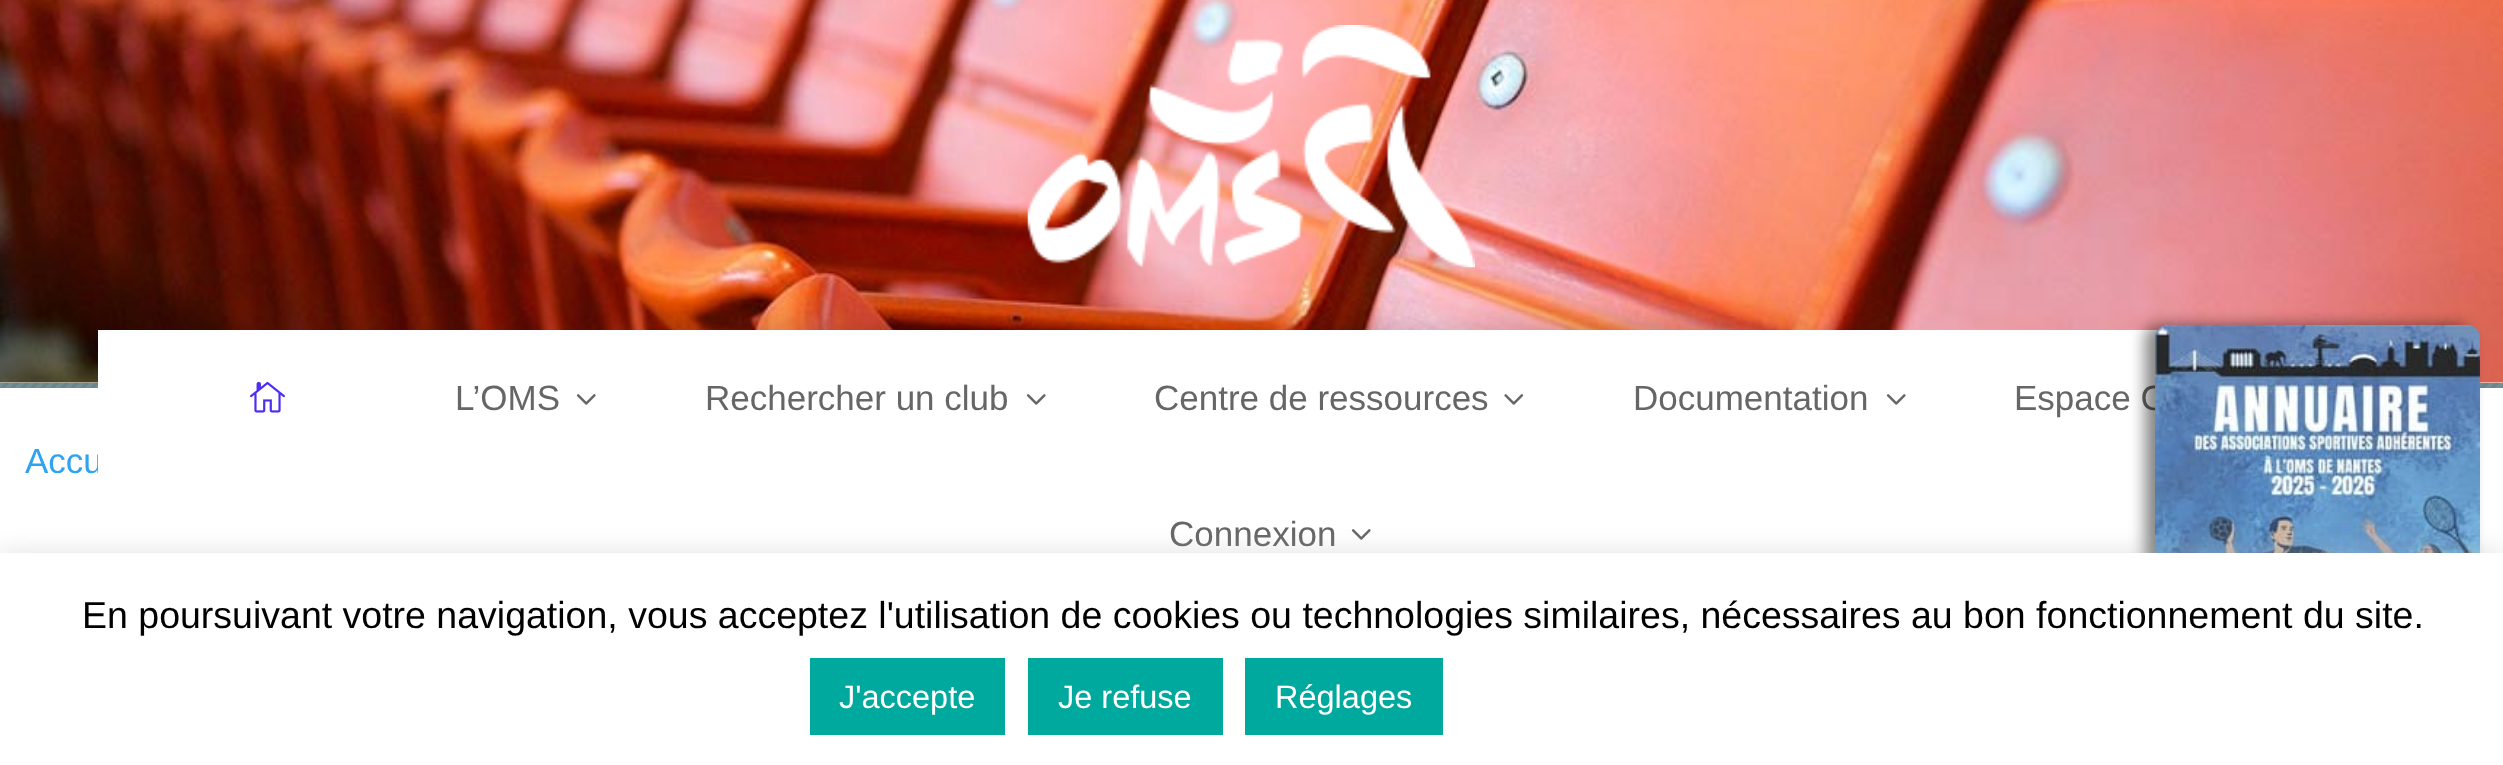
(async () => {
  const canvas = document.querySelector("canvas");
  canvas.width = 2503;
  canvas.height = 765;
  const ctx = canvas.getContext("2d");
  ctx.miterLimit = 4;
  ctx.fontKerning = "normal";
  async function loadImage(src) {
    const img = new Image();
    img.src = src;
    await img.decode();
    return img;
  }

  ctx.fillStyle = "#6f9299";
  ctx.fillRect(0, 0, 2503, 765);
  ctx.drawImage(await loadImage("img/1.png"), 0, 383, 2503, 5);
  ctx.fillStyle = "#ffffff";
  ctx.fillRect(0, 382, 2503, 1);
  ctx.drawImage(await loadImage("img/2.png"), 0, 0, 2503, 383);
  ctx.fillRect(0, 388, 2503, 165);
  ctx.fillStyle = "rgba(0, 0, 0, 0.3)";
  ctx.filter = "blur(22.5px)";
  ctx.beginPath();
  ctx.roundRect(690, 340, 1125, 60, 8);
  ctx.fill();
  ctx.filter = "none";
  ctx.drawImage(await loadImage("img/3.png"), 1027, 25, 448, 243);
  ctx.drawImage(await loadImage("img/5.png"), 1351, 529, 20, 11);
  ctx.font = "35px Liberation Sans";
  ctx.fillStyle = "#2ea3f2";
  ctx.fillText("Accu", 25, 473);
  ctx.fillStyle = "#ffffff";
  ctx.fillRect(98, 330, 2060, 143);
  ctx.drawImage(await loadImage("img/4.png"), 250, 381, 35, 32);
  ctx.fillStyle = "#666666";
  ctx.fillText("L’OMS", 455, 410);
  ctx.drawImage(await loadImage("img/5.png"), 576, 394, 20, 11);
  ctx.fillText("Rechercher un club", 705, 410);
  ctx.drawImage(await loadImage("img/5.png"), 1026, 394, 20, 11);
  ctx.fillText("Centre de ressources", 1154, 410);
  ctx.drawImage(await loadImage("img/6.png"), 1504, 394, 20, 11);
  ctx.fillText("Documentation", 1633, 410);
  ctx.drawImage(await loadImage("img/5.png"), 1886, 394, 20, 11);
  ctx.fillText("Espace C", 2014, 410);
  ctx.fillText("Connexion", 1169, 546);
  ctx.fillStyle = "rgba(0, 0, 0, 0.48)";
  ctx.filter = "blur(7.5px)";
  ctx.beginPath();
  ctx.roundRect(2145, 325, 325, 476, 13);
  ctx.fill();
  ctx.filter = "none";
  ctx.drawImage(await loadImage("img/7.png"), 2155, 325, 325, 228);
  ctx.fillStyle = "rgba(172, 171, 171, 0.3)";
  ctx.filter = "blur(12.5px)";
  ctx.beginPath();
  ctx.rect(0, 550, 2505, 213);
  ctx.fill();
  ctx.filter = "none";
  ctx.fillStyle = "#ffffff";
  ctx.fillRect(0, 553, 2503, 212);
  ctx.font = "37.5px Liberation Sans";
  ctx.fillStyle = "#000000";
  ctx.fillText("En poursuivant votre navigation, vous acceptez l'utilisation de cookies ou technologies similaires, nécessaires au bon fonctionnement du site.", 82, 628);
  ctx.fillStyle = "#00a99d";
  ctx.fillRect(810, 658, 195, 77);
  ctx.font = "32.5px Liberation Sans";
  ctx.fillStyle = "#ffffff";
  ctx.fillText("J'accepte", 839, 708);
  ctx.fillStyle = "#00a99d";
  ctx.fillRect(1028, 658, 195, 77);
  ctx.fillStyle = "#ffffff";
  ctx.fillText("Je refuse", 1058, 708);
  ctx.fillStyle = "#00a99d";
  ctx.fillRect(1245, 658, 198, 77);
  ctx.fillStyle = "#ffffff";
  ctx.fillText("Réglages", 1275, 708);
})();
